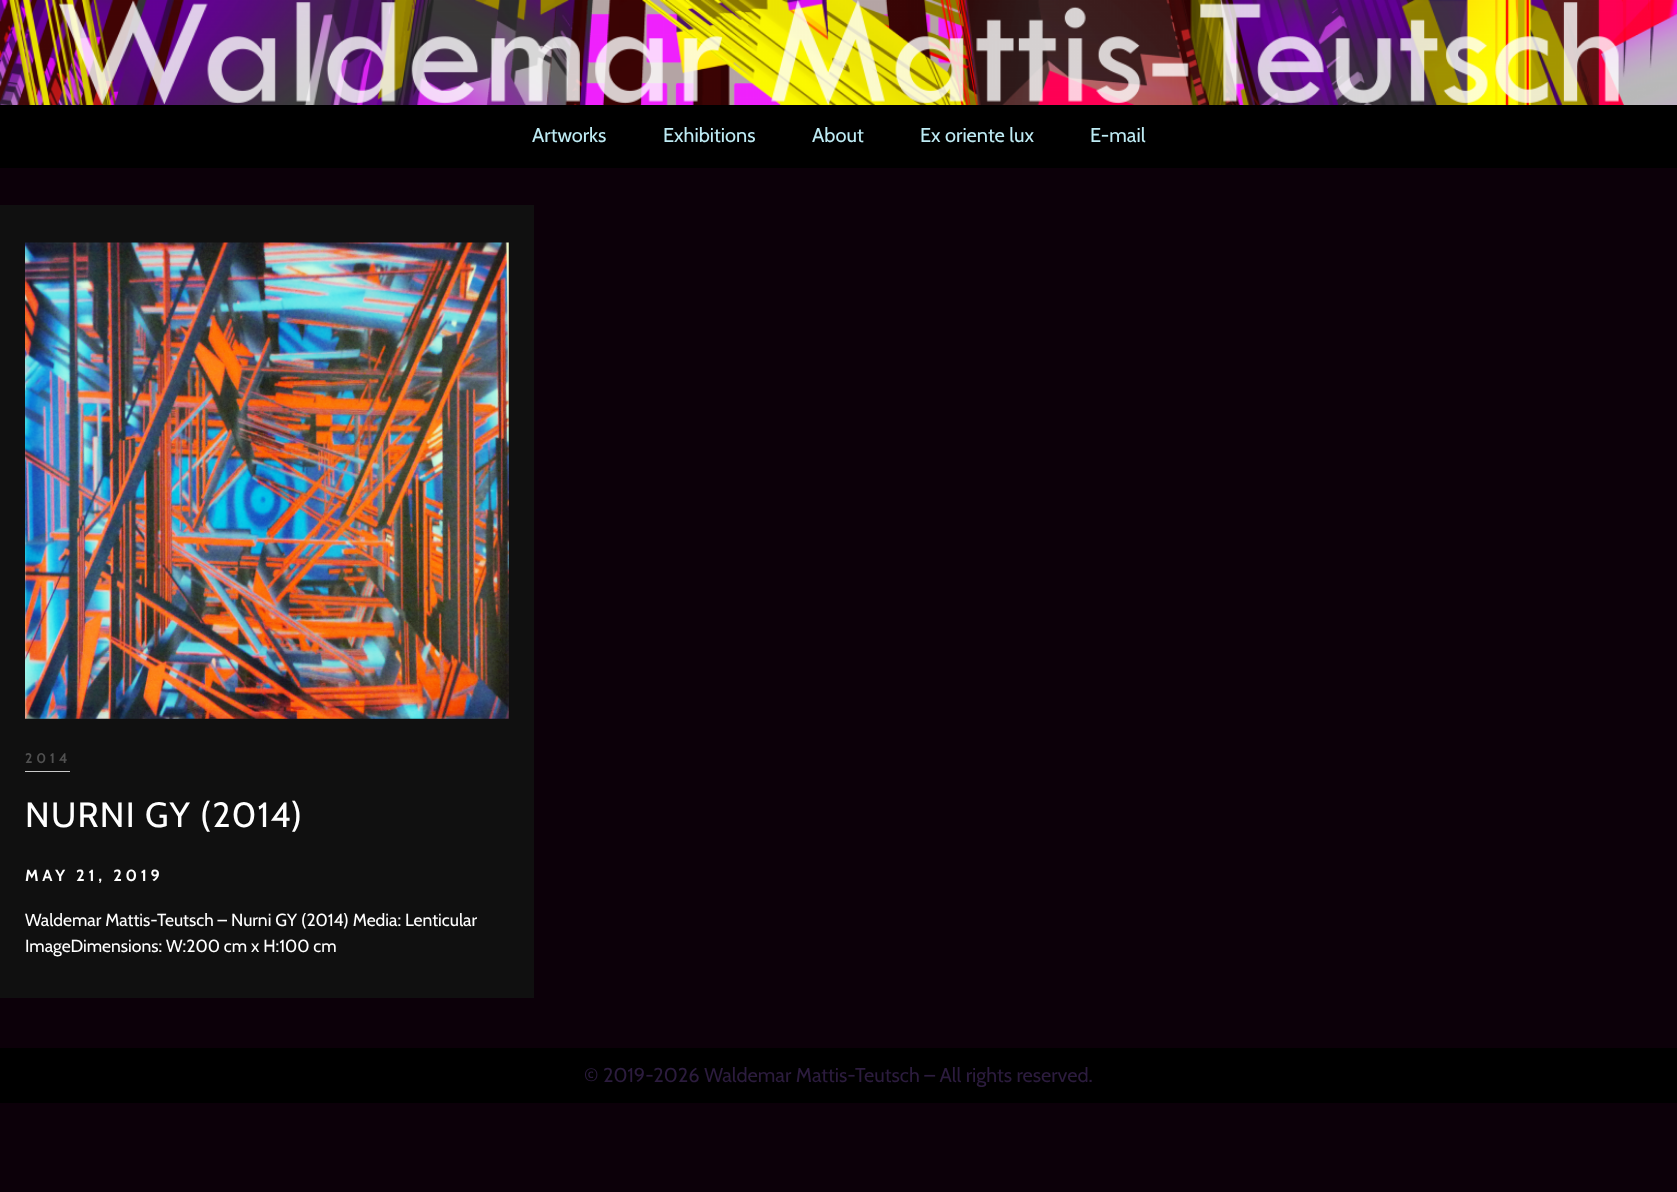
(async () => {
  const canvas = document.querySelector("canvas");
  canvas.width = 1677;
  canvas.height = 1192;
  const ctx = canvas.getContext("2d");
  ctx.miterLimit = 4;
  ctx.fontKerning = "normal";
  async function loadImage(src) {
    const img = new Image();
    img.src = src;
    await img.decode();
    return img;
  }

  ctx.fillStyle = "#0c0009";
  ctx.fillRect(0, 0, 1677, 1192);
  ctx.drawImage(await loadImage("img/1.png"), 0, 0, 1677, 105);
  ctx.fillStyle = "#000000";
  ctx.fillRect(0, 105, 1677, 63);
  ctx.fillStyle = "#101010";
  ctx.fillRect(0, 205, 534, 793);
  ctx.drawImage(await loadImage("img/2.png"), 25, 242, 484, 477);
  ctx.fillStyle = "#cacaca";
  ctx.fillRect(25, 771, 45, 1);
  ctx.fillStyle = "#000000";
  ctx.fillRect(0, 1048, 1677, 55);
  ctx.font = "20px Cabin";
  ctx.fillStyle = "#beebf4";
  for (const [text, x, y] of [
    ["Artworks", 532, 142],
    ["Exhibitions", 663, 142],
    ["About", 812, 142],
    ["Ex oriente lux", 920, 142],
    ["E-mail", 1090, 142],
  ]) {
    ctx.fillText(text, x, y);
  }
  ctx.letterSpacing = "3.75px";
  ctx.font = "bold 14px Cabin";
  ctx.fillStyle = "#505050";
  ctx.fillText("2014", 25, 763);
  ctx.letterSpacing = "1.25px";
  ctx.font = "35px Cabin";
  ctx.fillStyle = "#ffffff";
  ctx.fillText("NURNI GY (2014)", 25, 827);
  ctx.letterSpacing = "3.75px";
  ctx.font = "bold 16.25px Cabin";
  ctx.fillText("MAY 21, 2019", 25, 881);
  ctx.letterSpacing = "0px";
  ctx.font = "17.5px Cabin";
  ctx.fillText("Waldemar Mattis-Teutsch – Nurni GY (2014) Media: Lenticular", 25, 926);
  ctx.fillText("ImageDimensions: W:200 cm x H:100 cm", 25, 952);
  ctx.font = "20px Cabin";
  ctx.fillStyle = "#2c1c3e";
  ctx.fillText("© 2019-2026 Waldemar Mattis-Teutsch – All rights reserved.", 584, 1082);
})();
